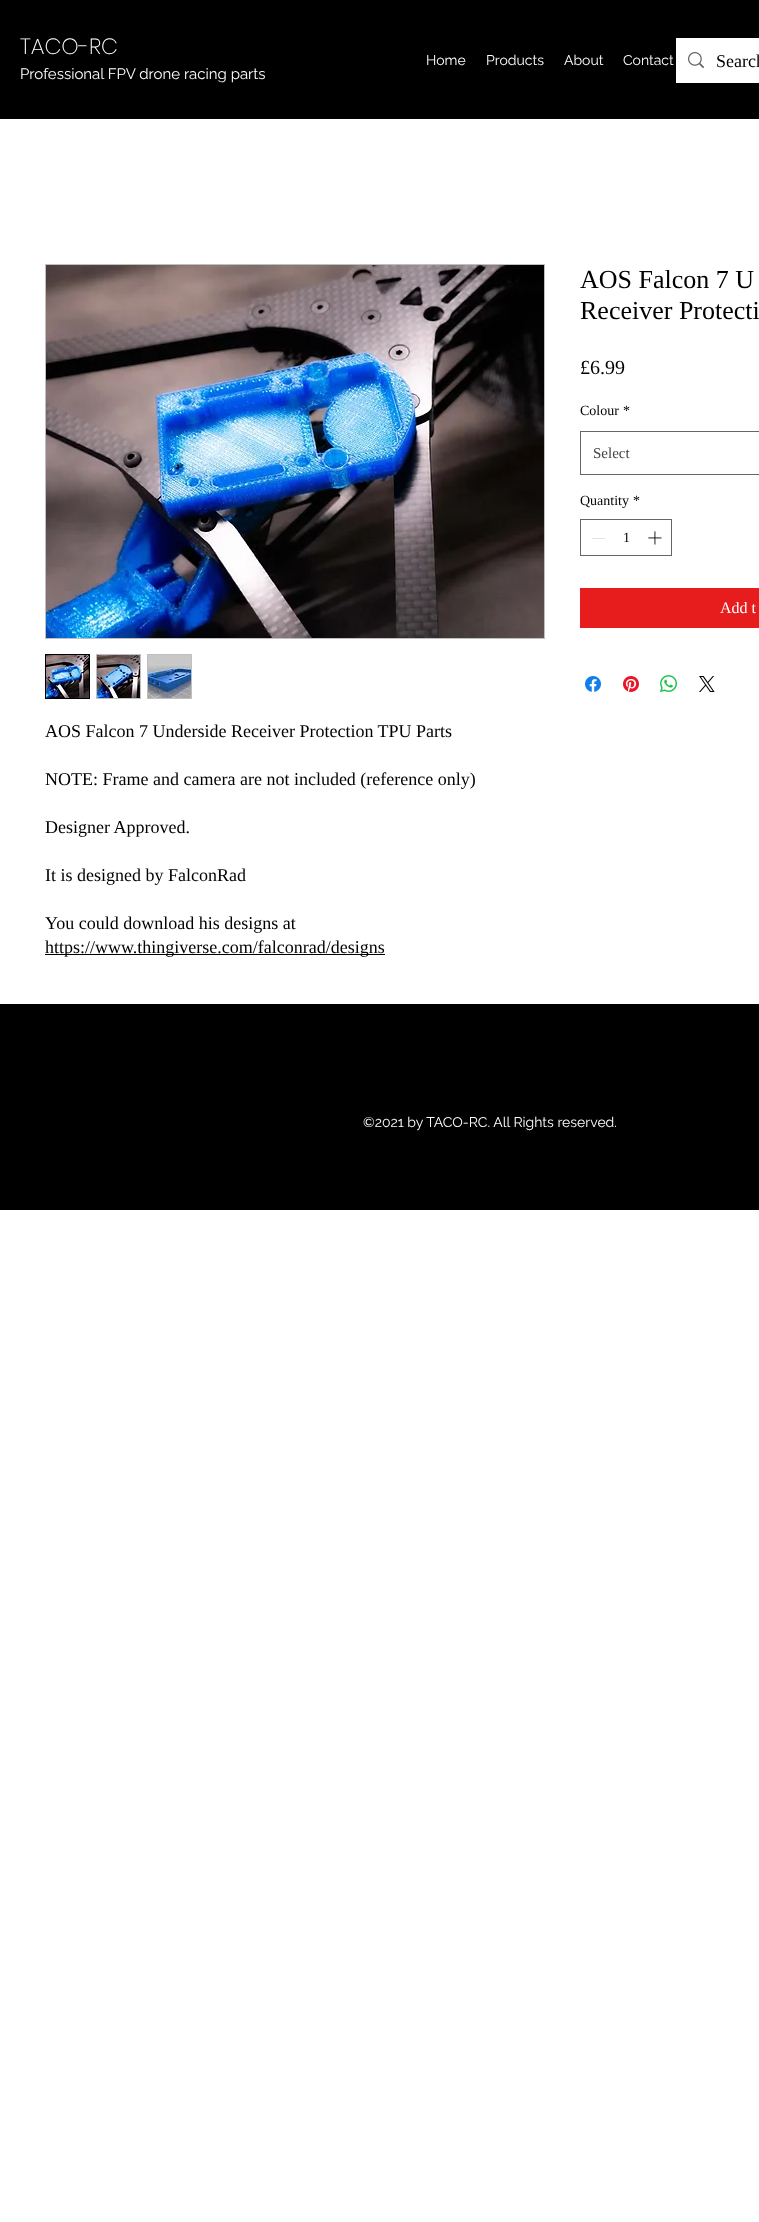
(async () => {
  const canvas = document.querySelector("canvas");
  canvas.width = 759;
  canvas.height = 2222;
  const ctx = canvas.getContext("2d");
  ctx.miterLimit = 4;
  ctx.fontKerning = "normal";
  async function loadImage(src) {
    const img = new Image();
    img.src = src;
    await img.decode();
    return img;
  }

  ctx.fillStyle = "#ffffff";
  ctx.fillRect(0, 0, 759, 2222);
  ctx.fillStyle = "#000000";
  ctx.fillRect(0, 0, 759, 119);
  ctx.fillStyle = "#ffffff";
  ctx.fillRect(676, 38, 83, 45);
  ctx.drawImage(await loadImage("img/1.png"), 688, 52, 16, 17);
  ctx.strokeStyle = "#666666";
  ctx.strokeRect(580.5, 431.5, 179, 43);
  ctx.strokeRect(580.5, 519.5, 91, 36);
  ctx.fillStyle = "#e3e3e3";
  ctx.fillRect(592, 538, 13, 1);
  ctx.drawImage(await loadImage("img/2.png"), 648, 531, 14, 14);
  ctx.fillStyle = "#e71d1d";
  ctx.fillRect(580, 588, 179, 40);
  ctx.drawImage(await loadImage("img/3.png"), 585, 676, 16, 16);
  ctx.drawImage(await loadImage("img/4.png"), 623, 676, 16, 16);
  ctx.drawImage(await loadImage("img/5.png"), 660, 675, 17, 17);
  ctx.drawImage(await loadImage("img/6.png"), 699, 676, 16, 16);
  ctx.strokeStyle = "#bfbfbf";
  ctx.strokeRect(45.5, 264.5, 499, 374);
  ctx.drawImage(await loadImage("img/7.png"), 46, 265, 498, 373);
  ctx.strokeStyle = "#000000";
  ctx.strokeRect(45.5, 654.5, 44, 44);
  ctx.drawImage(await loadImage("img/8.png"), 46, 655, 43, 43);
  ctx.fillStyle = "#bfbfbf";
  ctx.fillRect(96, 654, 45, 45);
  ctx.drawImage(await loadImage("img/9.png"), 97, 655, 43, 43);
  ctx.fillRect(147, 654, 45, 45);
  ctx.drawImage(await loadImage("img/10.png"), 148, 655, 43, 43);
  ctx.fillStyle = "#000000";
  ctx.fillRect(45, 954, 340, 1);
  ctx.fillRect(0, 1004, 759, 206);
  ctx.font = "200 22px Poppins";
  ctx.fillStyle = "#ffffff";
  ctx.fillText("TACO-RC", 20, 54);
  ctx.font = "15px Raleway";
  ctx.fillText("Professional FPV drone racing parts", 20, 79);
  ctx.font = "14px Raleway";
  for (const [text, x, y] of [
    ["Home", 426, 65],
    ["Products", 486, 65],
    ["About", 564, 65],
    ["Contact", 623, 65],
  ]) {
    ctx.fillText(text, x, y);
  }
  ctx.font = "18px Liberation Serif";
  ctx.fillStyle = "#000000";
  ctx.fillText("Search", 716, 67);
  ctx.font = "26px Liberation Serif";
  ctx.fillText("AOS Falcon 7 U", 580, 288);
  ctx.fillText("Receiver Protecti", 580, 319);
  ctx.font = "20px Liberation Serif";
  ctx.fillText("£6.99", 580, 374);
  ctx.font = "14px Liberation Serif";
  ctx.fillText("Colour", 580, 415);
  ctx.fillText("*", 623, 415);
  ctx.font = "15px Liberation Serif";
  ctx.fillStyle = "#444444";
  ctx.fillText("Select", 593, 458);
  ctx.font = "14px Liberation Serif";
  ctx.fillStyle = "#000000";
  for (const [text, x, y] of [
    ["Quantity", 580, 505],
    ["*", 633, 505],
    ["1", 623, 542],
  ]) {
    ctx.fillText(text, x, y);
  }
  ctx.font = "16px Liberation Serif";
  ctx.fillStyle = "#ffffff";
  ctx.fillText("Add t", 720, 613);
  ctx.font = "18px Liberation Serif";
  ctx.fillStyle = "#000000";
  for (const [text, x, y] of [
    ["AOS Falcon 7 Underside Receiver Protection TPU Parts", 45, 737],
    ["NOTE: Frame and camera are not included (reference only)", 45, 785],
    ["Designer Approved.", 45, 833],
    ["It is designed by FalconRad", 45, 881],
    ["You could download his designs at", 45, 929],
    ["https://www.thingiverse.com/falconrad/designs", 45, 953],
  ]) {
    ctx.fillText(text, x, y);
  }
  ctx.font = "14px Raleway";
  ctx.fillStyle = "#ffffff";
  ctx.fillText("©2021 by TACO-RC. All Rights reserved.", 363, 1127);
})();
